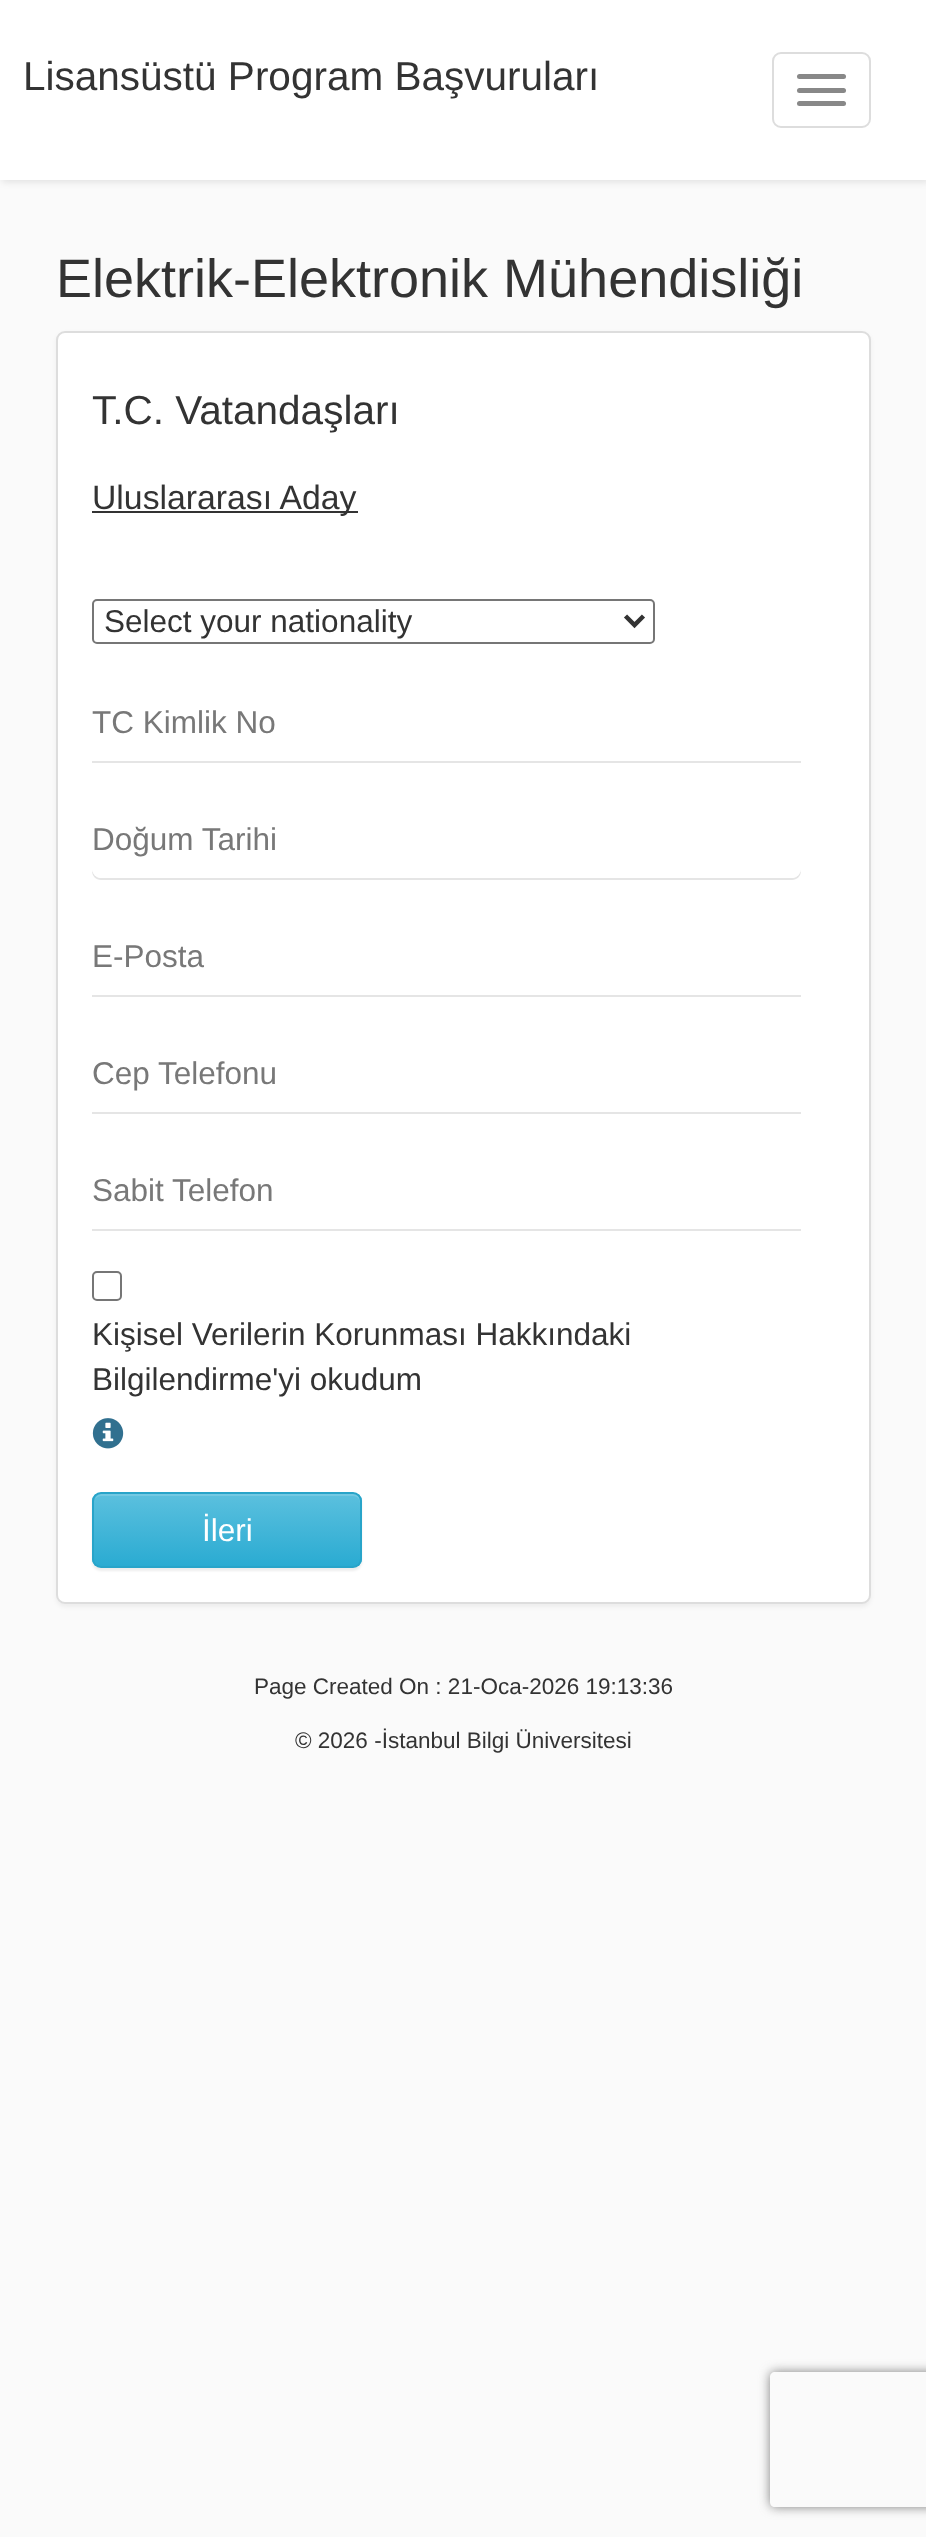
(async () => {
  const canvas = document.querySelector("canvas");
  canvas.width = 926;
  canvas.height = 2537;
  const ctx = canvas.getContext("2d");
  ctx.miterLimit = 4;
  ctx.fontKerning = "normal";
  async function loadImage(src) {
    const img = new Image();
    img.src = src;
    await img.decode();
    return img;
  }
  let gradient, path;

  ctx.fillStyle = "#fafafa";
  ctx.fillRect(0, 0, 926, 2537);
  ctx.fillStyle = "rgba(0, 0, 0, 0.1)";
  ctx.filter = "blur(3.5px)";
  ctx.beginPath();
  ctx.rect(2, 2, 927, 180);
  ctx.fill();
  ctx.filter = "none";
  ctx.fillStyle = "#ffffff";
  ctx.fillRect(0, 0, 926, 180);
  ctx.beginPath();
  ctx.roundRect(773, 53, 97, 74, 8);
  ctx.strokeStyle = "#dddddd";
  ctx.lineWidth = 2;
  ctx.stroke();
  ctx.fillStyle = "#888888";
  ctx.beginPath();
  ctx.roundRect(797, 74, 49, 5, 2.5);
  ctx.fill();
  ctx.beginPath();
  ctx.roundRect(797, 88, 49, 5, 2.5);
  ctx.fill();
  ctx.beginPath();
  ctx.roundRect(797, 101, 49, 5, 2.5);
  ctx.fill();
  ctx.fillStyle = "rgba(0, 0, 0, 0.05)";
  ctx.filter = "blur(2px)";
  ctx.beginPath();
  ctx.roundRect(56, 333, 815, 1274, 9);
  ctx.fill();
  ctx.filter = "none";
  ctx.fillStyle = "#ffffff";
  ctx.beginPath();
  ctx.roundRect(57, 332, 813, 1271, 8);
  ctx.fill();
  ctx.stroke();
  ctx.fillStyle = "#333333";
  ctx.fillRect(92, 511, 266, 2);
  ctx.beginPath();
  ctx.roundRect(93, 600, 561, 43, 4);
  ctx.strokeStyle = "#767676";
  ctx.stroke();
  path = new Path2D("M625.5 616L634.5 625L643.5 616");
  ctx.strokeStyle = "#333333";
  ctx.lineWidth = 4.5;
  ctx.stroke(path);
  ctx.fillStyle = "#e5e5e5";
  path = new Path2D("M92 680V763H801V760H92Z");
  ctx.fill(path);
  ctx.fillStyle = "#ffffff";
  ctx.fillRect(92, 760, 709, 1);
  ctx.fillStyle = "#e5e5e5";
  path = new Path2D("M92 804V871C92 876 96 880 101 880H792C797 880 801 876 801 871V868C801 873 797 878 792 878H101C96 878 92 873 92 868Z");
  ctx.fill(path);
  ctx.fillStyle = "#ffffff";
  ctx.beginPath();
  ctx.roundRect(92, 794, 709, 84, 9);
  ctx.fill();
  ctx.fillStyle = "#e5e5e5";
  path = new Path2D("M92 914V997H801V994H92Z");
  ctx.fill(path);
  ctx.fillStyle = "#ffffff";
  ctx.fillRect(92, 994, 709, 1);
  ctx.fillStyle = "#e5e5e5";
  path = new Path2D("M92 1031V1114H801V1112H92Z");
  ctx.fill(path);
  path = new Path2D("M92 1148V1231H801V1228H92Z");
  ctx.fill(path);
  ctx.fillStyle = "#ffffff";
  ctx.fillRect(92, 1228, 709, 1);
  ctx.beginPath();
  ctx.roundRect(93, 1272, 28, 28, 4);
  ctx.strokeStyle = "#767676";
  ctx.lineWidth = 2;
  ctx.stroke();
  ctx.drawImage(await loadImage("img/1.png"), 92, 1418, 32, 31);
  ctx.fillStyle = "rgba(0, 0, 0, 0.07)";
  ctx.filter = "blur(1px)";
  ctx.beginPath();
  ctx.roundRect(92, 1494, 270, 77, 9);
  ctx.fill();
  ctx.filter = "none";
  ctx.save();
  ctx.beginPath();
  ctx.roundRect(92, 1492, 270, 76, 9);
  ctx.clip();
  gradient = ctx.createLinearGradient(227, 1494, 227, 1566);
  gradient.addColorStop(0, "#5bc0de");
  gradient.addColorStop(1, "#2aabd2");
  ctx.fillStyle = gradient;
  ctx.fillRect(92, 1494, 270, 72);
  ctx.restore();
  ctx.fillStyle = "rgba(255, 255, 255, 0.15)";
  path = new Path2D("M101 1496H353C357 1496 360 1499 360 1503V1501C360 1497 357 1494 353 1494H102C99 1494 96 1496 95 1499C97 1497 99 1496 101 1496Z");
  ctx.fill(path);
  ctx.beginPath();
  ctx.roundRect(93, 1493, 268, 74, 8);
  ctx.strokeStyle = "#28a4c9";
  ctx.stroke();
  ctx.save();
  path = new Path2D("M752 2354H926V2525H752ZM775 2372H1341C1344 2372 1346 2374 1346 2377V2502C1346 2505 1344 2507 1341 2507H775C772 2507 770 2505 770 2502V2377C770 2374 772 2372 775 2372Z");
  ctx.clip(path, "evenodd");
  ctx.fillStyle = "#808080";
  ctx.filter = "blur(5.5px)";
  ctx.beginPath();
  ctx.roundRect(770, 2372, 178, 135, 5);
  ctx.fill();
  ctx.filter = "none";
  ctx.restore();
  ctx.font = "40.5px Liberation Sans";
  ctx.fillStyle = "#333333";
  ctx.fillText("Lisansüstü Program Başvuruları", 23, 90);
  ctx.font = "54px Liberation Sans";
  ctx.fillText("Elektrik-Elektronik Mühendisliği", 56, 297);
  ctx.font = "40.5px Liberation Sans";
  ctx.fillText("T.C. Vatandaşları", 92, 424);
  ctx.font = "33.75px Liberation Sans";
  ctx.fillText("Uluslararası Aday", 92, 509);
  ctx.font = "31.5px Liberation Sans";
  ctx.fillText("Select your nationality", 104, 632);
  ctx.fillStyle = "#787878";
  for (const [text, x, y] of [
    ["TC Kimlik No", 92, 733],
    ["Doğum Tarihi", 92, 850],
    ["E-Posta", 92, 967],
    ["Cep Telefonu", 92, 1084],
    ["Sabit Telefon", 92, 1201],
  ]) {
    ctx.fillText(text, x, y);
  }
  ctx.fillStyle = "#333333";
  ctx.fillText("Kişisel Verilerin Korunması Hakkındaki", 92, 1345);
  ctx.fillText("Bilgilendirme'yi okudum", 92, 1390);
  ctx.fillStyle = "#ffffff";
  ctx.fillText("İleri", 202, 1541);
  ctx.font = "22.5px Liberation Sans";
  ctx.fillStyle = "#333333";
  ctx.fillText("Page Created On : 21-Oca-2026 19:13:36", 254, 1694);
  ctx.fillText("© 2026 -İstanbul Bilgi Üniversitesi", 295, 1748);
})();
